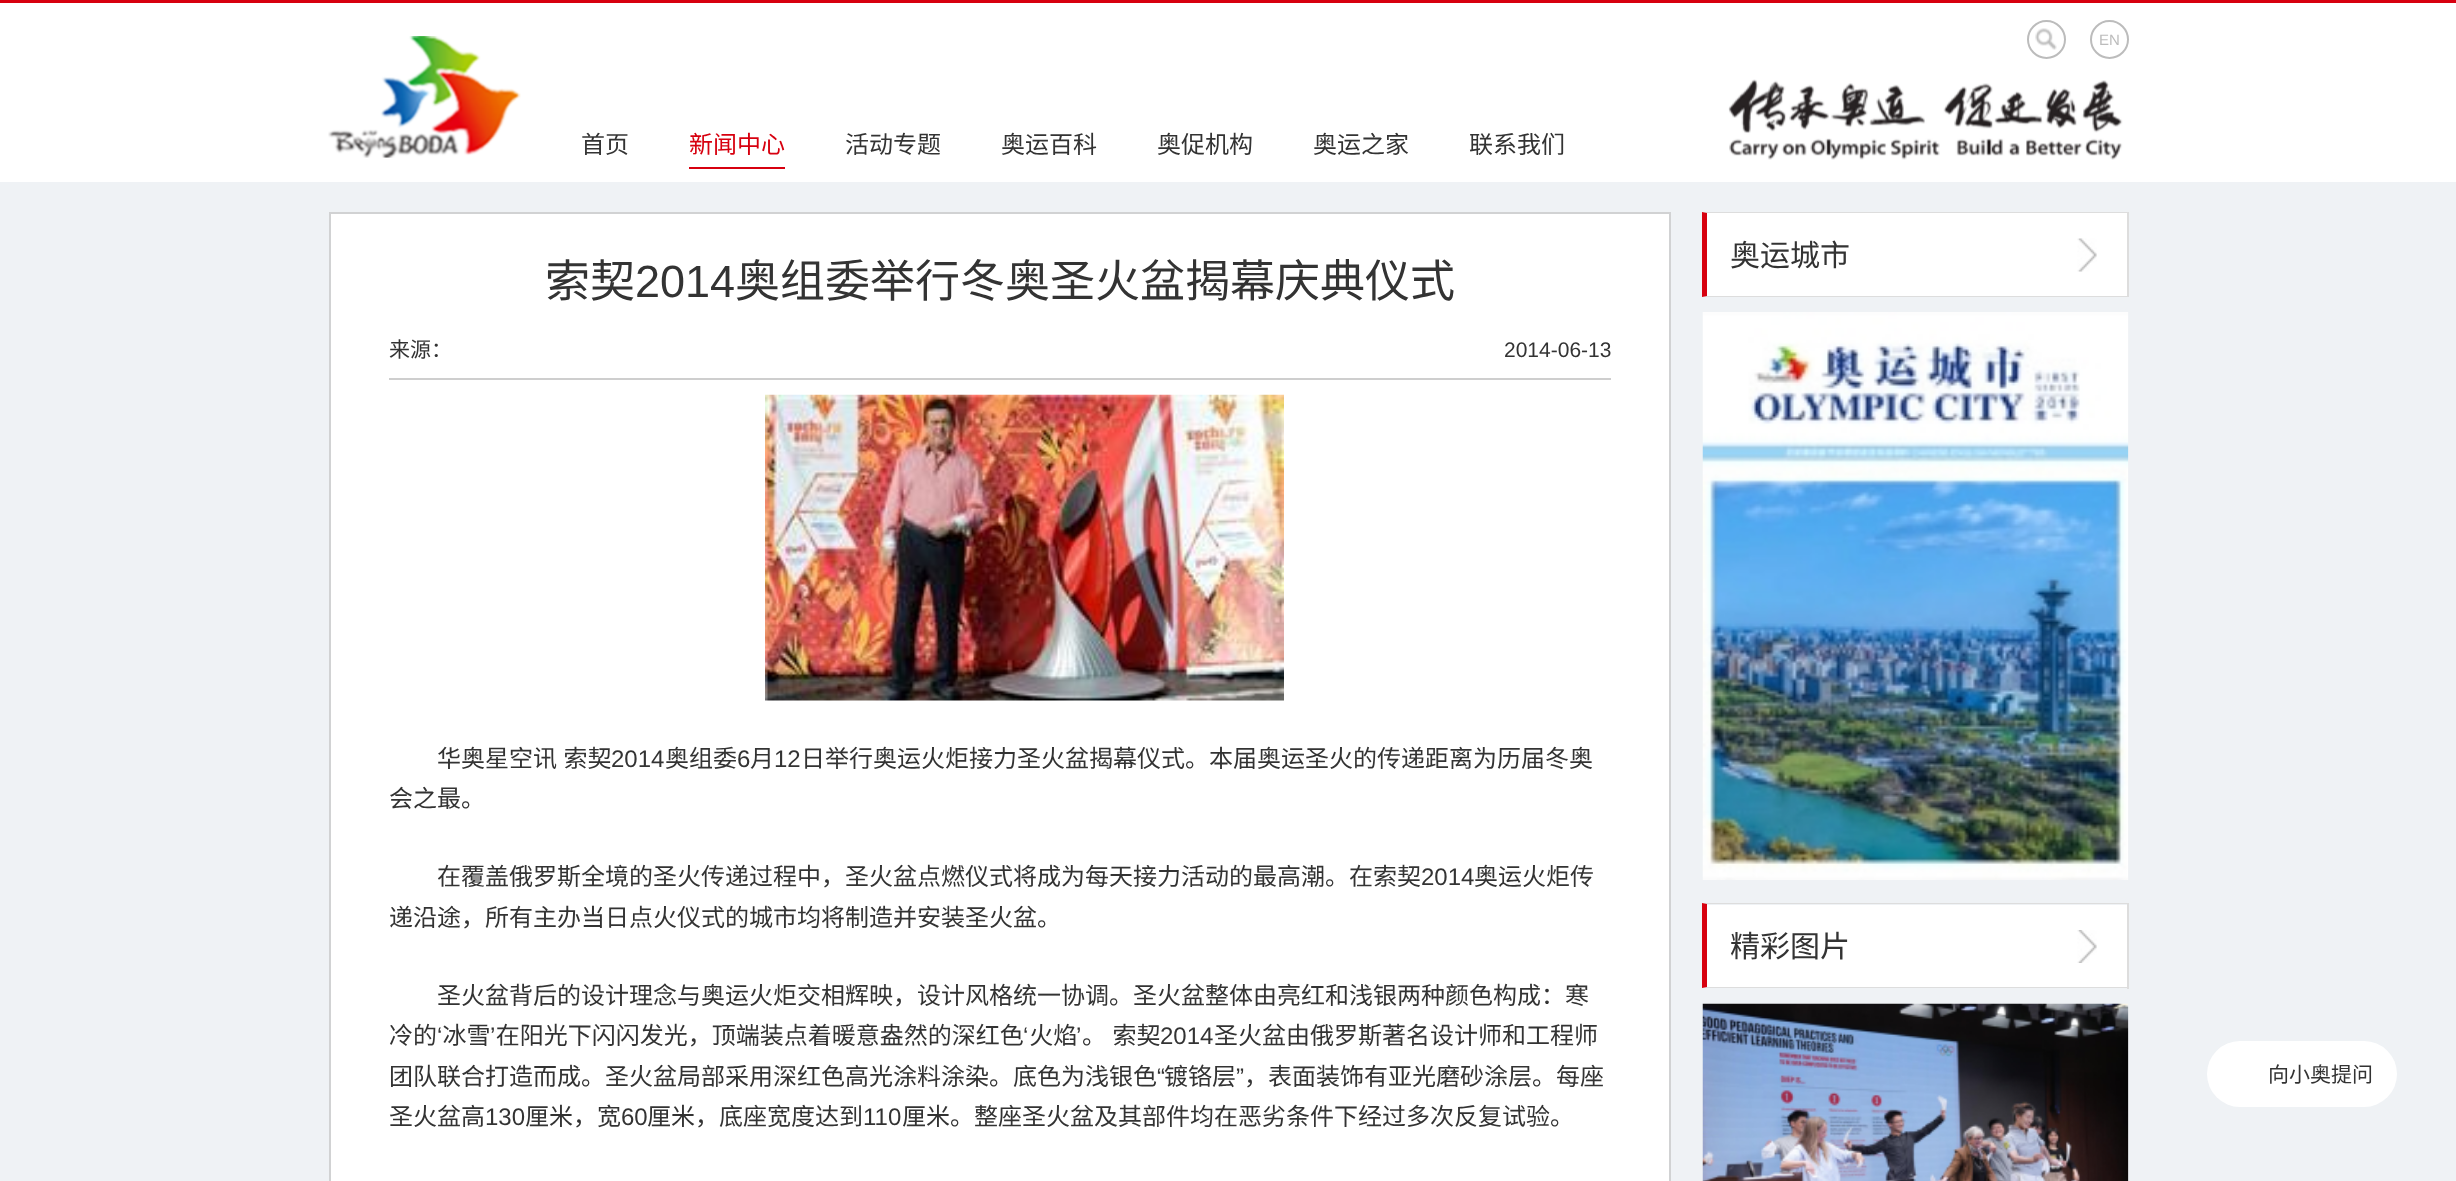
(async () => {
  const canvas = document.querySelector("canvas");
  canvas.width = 2456;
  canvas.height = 1181;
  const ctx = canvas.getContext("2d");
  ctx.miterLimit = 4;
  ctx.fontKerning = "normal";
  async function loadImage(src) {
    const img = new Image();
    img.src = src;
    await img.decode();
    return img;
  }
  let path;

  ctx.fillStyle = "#eff2f5";
  ctx.fillRect(0, 0, 2456, 1181);
  ctx.fillStyle = "#ffffff";
  ctx.fillRect(0, 3, 2456, 179);
  ctx.fillStyle = "#d7000f";
  ctx.fillRect(0, 0, 2456, 3);
  ctx.drawImage(await loadImage("img/1.png"), 328, 36, 193, 122);
  ctx.drawImage(await loadImage("img/2.png"), 2035, 28, 22, 22);
  ctx.beginPath();
  ctx.arc(2046.5, 39.5, 18.5, 0, Math.PI * 2);
  ctx.strokeStyle = "#bcbcbc";
  ctx.lineWidth = 2;
  ctx.stroke();
  ctx.beginPath();
  ctx.arc(2109.5, 39.5, 18.5, 0, Math.PI * 2);
  ctx.stroke();
  ctx.fillRect(689, 167, 96, 2);
  ctx.drawImage(await loadImage("img/3.png"), 1728, 79, 395, 81);
  ctx.fillStyle = "#ffffff";
  ctx.beginPath();
  ctx.rect(330, 213, 1340, 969);
  ctx.fill();
  ctx.strokeStyle = "#d1d2d3";
  ctx.stroke();
  ctx.fillStyle = "#cecece";
  ctx.fillRect(389, 378, 1222, 2);
  ctx.drawImage(await loadImage("img/4.png"), 765, 394, 519, 307);
  ctx.fillStyle = "#ffffff";
  ctx.fillRect(1707, 213, 420, 83);
  ctx.fillStyle = "#dddddd";
  path = new Path2D("M1702 212H2128L2127 213H1707Z");
  ctx.fill(path);
  ctx.fillRect(2127, 212, 2, 85);
  path = new Path2D("M2128 297H1702L1707 296H2127Z");
  ctx.fill(path);
  ctx.fillStyle = "#d7010f";
  path = new Path2D("M1702 297V212L1707 213V296Z");
  ctx.fill(path);
  ctx.drawImage(await loadImage("img/5.png"), 2077, 238, 20, 34);
  ctx.drawImage(await loadImage("img/6.png"), 1702, 312, 427, 568);
  ctx.fillStyle = "#ffffff";
  ctx.fillRect(1707, 905, 420, 82);
  ctx.fillStyle = "#dddddd";
  path = new Path2D("M1702 903H2128L2127 904H1707Z");
  ctx.fill(path);
  ctx.fillRect(2127, 903, 2, 86);
  path = new Path2D("M2128 988H1702L1707 987H2127Z");
  ctx.fill(path);
  ctx.fillStyle = "#d7010f";
  path = new Path2D("M1702 988V903L1707 904V987Z");
  ctx.fill(path);
  ctx.drawImage(await loadImage("img/7.png"), 2077, 930, 20, 33);
  ctx.drawImage(await loadImage("img/8.png"), 1702, 1003, 427, 178);
  ctx.fillStyle = "#ffffff";
  ctx.beginPath();
  ctx.roundRect(2207, 1041, 190, 66, 33);
  ctx.fill();
  ctx.font = "15px Liberation Sans";
  ctx.fillStyle = "#bcbcbc";
  ctx.fillText("EN", 2099, 45);
  ctx.font = "24px Noto Sans CJK SC";
  ctx.fillStyle = "#333333";
  ctx.fillText("首页", 581, 153);
  ctx.fillStyle = "#d7000f";
  ctx.fillText("新闻中心", 689, 153);
  ctx.fillStyle = "#333333";
  for (const [text, x, y] of [
    ["活动专题", 845, 153],
    ["奥运百科", 1001, 153],
    ["奥促机构", 1157, 153],
    ["奥运之家", 1313, 153],
    ["联系我们", 1469, 153],
  ]) {
    ctx.fillText(text, x, y);
  }
  ctx.font = "45px Noto Sans CJK SC";
  ctx.fillText("索契", 545, 297);
  ctx.font = "45px Liberation Sans";
  ctx.fillText("2014", 635, 297);
  ctx.font = "45px Noto Sans CJK SC";
  ctx.fillText("奥组委举行冬奥圣火盆揭幕庆典仪式", 735, 297);
  ctx.font = "21px Noto Sans CJK SC";
  ctx.fillText("来源：", 389, 357);
  ctx.font = "21px Liberation Sans";
  ctx.fillText("2014-06-13", 1504, 357);
  ctx.wordSpacing = "1px";
  ctx.font = "24px Noto Sans CJK SC";
  ctx.fillText("华奥星空讯 索契", 437, 767);
  ctx.wordSpacing = "0px";
  ctx.font = "24px Liberation Sans";
  ctx.fillText("2014", 611, 767);
  ctx.font = "24px Noto Sans CJK SC";
  ctx.fillText("奥组委", 665, 767);
  ctx.font = "24px Liberation Sans";
  ctx.fillText("6", 737, 767);
  ctx.font = "24px Noto Sans CJK SC";
  ctx.fillText("月", 750, 767);
  ctx.font = "24px Liberation Sans";
  ctx.fillText("12", 774, 767);
  ctx.font = "24px Noto Sans CJK SC";
  for (const [text, x, y] of [
    ["日举行奥运火炬接力圣火盆揭幕仪式。本届奥运圣火的传递距离为历届冬奥", 801, 767],
    ["会之最。", 389, 807],
    ["在覆盖俄罗斯全境的圣火传递过程中，圣火盆点燃仪式将成为每天接力活动的最高潮。在索契", 437, 885],
  ]) {
    ctx.fillText(text, x, y);
  }
  ctx.font = "24px Liberation Sans";
  ctx.fillText("2014", 1421, 885);
  ctx.font = "24px Noto Sans CJK SC";
  for (const [text, x, y] of [
    ["奥运火炬传", 1474, 885],
    ["递沿途，所有主办当日点火仪式的城市均将制造并安装圣火盆。", 389, 926],
    ["圣火盆背后的设计理念与奥运火炬交相辉映，设计风格统一协调。圣火盆整体由亮红和浅银两种颜色构成：寒", 437, 1004],
    ["冷的 冰雪 在阳光下闪闪发光，顶端装点着暖意盎然的深红色 火焰", 389, 1044],
  ]) {
    ctx.fillText(text, x, y);
  }
  ctx.wordSpacing = "1px";
  ctx.fillText("。 索契", 1082, 1044);
  ctx.wordSpacing = "0px";
  ctx.fillText("圣火盆由俄罗斯著名设计师和工程师", 1214, 1044);
  ctx.font = "24px Liberation Sans";
  for (const [text, x, y] of [
    ["‘", 437, 1044],
    ["’", 490, 1044],
    ["‘", 1023, 1044],
    ["’", 1076, 1044],
    ["2014", 1160, 1044],
  ]) {
    ctx.fillText(text, x, y);
  }
  ctx.font = "24px Noto Sans CJK SC";
  ctx.fillText("团队联合打造而成。圣火盆局部采用深红色高光涂料涂染。底色为浅银色", 389, 1085);
  ctx.font = "24px Liberation Sans";
  ctx.fillText("“", 1157, 1085);
  ctx.font = "24px Noto Sans CJK SC";
  ctx.fillText("镀铬层", 1164, 1085);
  ctx.font = "24px Liberation Sans";
  ctx.fillText("”", 1236, 1085);
  ctx.font = "24px Noto Sans CJK SC";
  ctx.fillText("，表面装饰有亚光磨砂涂层。每座", 1244, 1085);
  ctx.fillText("圣火盆高", 389, 1125);
  ctx.font = "24px Liberation Sans";
  ctx.fillText("130", 485, 1125);
  ctx.font = "24px Noto Sans CJK SC";
  ctx.fillText("厘米，宽", 525, 1125);
  ctx.font = "24px Liberation Sans";
  ctx.fillText("60", 621, 1125);
  ctx.font = "24px Noto Sans CJK SC";
  ctx.fillText("厘米，底座宽度达到", 647, 1125);
  ctx.font = "24px Liberation Sans";
  ctx.fillText("110", 863, 1125);
  ctx.font = "24px Noto Sans CJK SC";
  ctx.fillText("厘米。整座圣火盆及其部件均在恶劣条件下经过多次反复试验。", 902, 1125);
  ctx.font = "30px Noto Sans CJK SC";
  ctx.fillText("奥运城市", 1730, 266);
  ctx.fillText("精彩图片", 1730, 957);
  ctx.font = "21px Noto Sans CJK SC";
  ctx.fillText("向小奥提问", 2268, 1082);
})();
